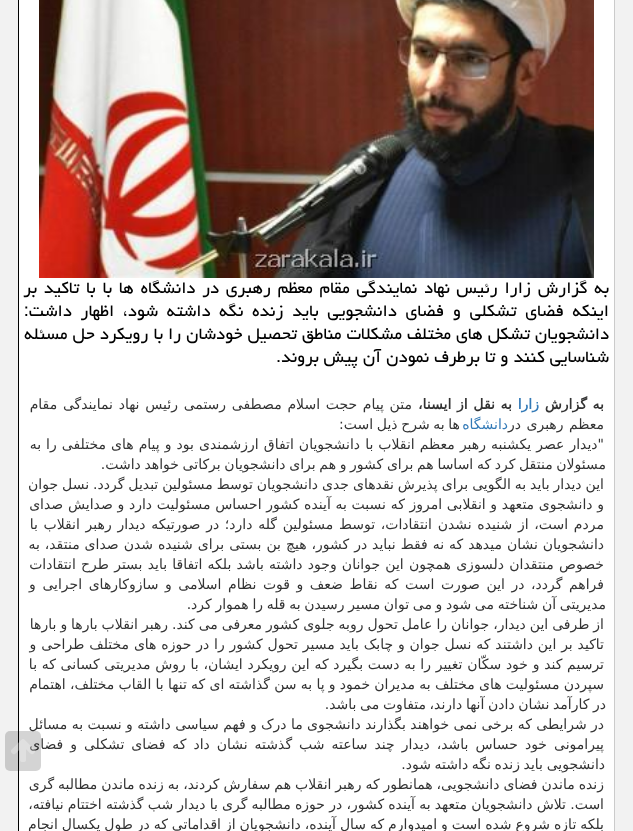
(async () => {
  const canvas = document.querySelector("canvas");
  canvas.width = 633;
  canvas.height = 831;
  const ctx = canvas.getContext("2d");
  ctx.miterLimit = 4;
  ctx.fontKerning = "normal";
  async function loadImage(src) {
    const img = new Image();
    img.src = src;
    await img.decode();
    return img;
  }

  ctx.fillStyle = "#f2f2f2";
  ctx.fillRect(0, 0, 633, 831);
  for (const [x, y, w, h, color] of [
    [19, 0, 595, 831, "#ffffff"],
    [614, 0, 1, 831, "#cbcbcb"],
    [18, 0, 1, 831, "#000000"],
  ]) {
    ctx.fillStyle = color;
    ctx.fillRect(x, y, w, h);
  }
  ctx.drawImage(await loadImage("img/1.png"), 39, 0, 555, 278);
  ctx.wordSpacing = "1.75px";
  ctx.direction = "rtl";
  ctx.font = "21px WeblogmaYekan";
  ctx.fillText("به گزارش زارا رئیس نهاد نمایندگی مقام معظم رهبری در دانشگاه ها با با تاكید بر", 609, 293);
  ctx.wordSpacing = "3.75px";
  ctx.fillText("اینكه فضای تشكلی و فضای دانشجویی باید زنده نگه داشته شود، اظهار داشت:", 609, 316);
  ctx.wordSpacing = "0px";
  ctx.fillText("دانشجویان تشكل های مختلف مشكلات مناطق تحصیل خودشان را با رویكرد حل مسئله", 609, 339);
  ctx.fillText("شناسایی كنند و تا برطرف نمودن آن پیش بروند.", 609, 362);
  ctx.wordSpacing = "1.25px";
  ctx.font = "bold 14px DejaVu Sans";
  ctx.fillStyle = "#333333";
  ctx.fillText("به گزارش", 604, 409);
  ctx.wordSpacing = "0px";
  ctx.fillStyle = "#337ab7";
  ctx.fillText("زارا", 539, 409);
  ctx.wordSpacing = "1.25px";
  ctx.fillStyle = "#333333";
  ctx.fillText("به نقل از ایسنا،", 512, 409);
  ctx.font = "14px DejaVu Sans";
  ctx.fillText("متن پیام حجت اسلام مصطفی رستمی رئیس نهاد نمایندگی مقام", 412, 409);
  ctx.wordSpacing = "1px";
  ctx.fillText("معظم رهبری در", 604, 429);
  ctx.wordSpacing = "0px";
  ctx.fillStyle = "#337ab7";
  ctx.fillText("دانشگاه", 508, 429);
  ctx.wordSpacing = "-0.8px";
  ctx.fillStyle = "#333333";
  ctx.fillText("ها به شرح ذیل است:", 460, 429);
  ctx.wordSpacing = "0.6px";
  ctx.fillText("\"دیدار عصر یکشنبه رهبر معظم انقلاب با دانشجویان اتفاق ارزشمندی بود و پیام های مختلفی را به", 604, 449);
  ctx.wordSpacing = "-0.8px";
  ctx.fillText("مسئولان منتقل کرد که اساسا هم برای کشور و هم برای دانشجویان برکاتی خواهد داشت.", 606, 469);
  ctx.wordSpacing = "-0.5px";
  ctx.fillText("این دیدار باید به الگویی برای پذیرش نقدهای جدی دانشجویان توسط مسئولین تبدیل گردد. نسل جوان", 604, 489);
  ctx.wordSpacing = "0.25px";
  ctx.fillText("و دانشجوی متعهد و انقلابی امروز که نسبت به آینده کشور احساس مسئولیت دارد و صدایش صدای", 604, 509);
  ctx.wordSpacing = "1.25px";
  ctx.fillText("مردم است، از شنیده نشدن انتقادات، توسط مسئولین گله دارد؛ در صورتیکه دیدار رهبر انقلاب با", 604, 529);
  ctx.wordSpacing = "0.5px";
  ctx.fillText("دانشجویان نشان میدهد که نه فقط نباید در کشور، هیچ بن بستی برای شنیده شدن صدای منتقد، به", 604, 549);
  ctx.wordSpacing = "0.75px";
  ctx.fillText("خصوص منتقدان دلسوزی همچون این جوانان وجود داشته باشد بلکه اتفاقا باید بستر طرح انتقادات", 604, 569);
  ctx.wordSpacing = "2.1px";
  ctx.fillText("فراهم گردد، در این صورت است که نقاط ضعف و قوت نظام اسلامی و سازوکارهای اجرایی و", 604, 589);
  ctx.wordSpacing = "-0.8px";
  ctx.fillText("مدیریتی آن شناخته می شود و می توان مسیر رسیدن به قله را هموار کرد.", 606, 609);
  ctx.wordSpacing = "-0.5px";
  ctx.fillText("از طرفی این دیدار، جوانان را عامل تحول روبه جلوی کشور معرفی می کند. رهبر انقلاب بارها و بارها", 604, 629);
  ctx.wordSpacing = "0.4px";
  ctx.fillText("تاکید بر این داشتند که نسل جوان و چابک باید مسیر تحول کشور را در حوزه های مختلف طراحی و", 604, 649);
  ctx.wordSpacing = "0.25px";
  ctx.fillText("ترسیم کند و خود سکّان تغییر را به دست بگیرد که این رویکرد ایشان، با روش مدیریتی کسانی که با", 604, 669);
  ctx.wordSpacing = "-0.2px";
  ctx.fillText("سپردن مسئولیت های مختلف به مدیران خمود و پا به سن گذاشته ای که تنها با القاب مختلف، اهتمام", 604, 689);
  ctx.wordSpacing = "-0.8px";
  ctx.fillText("در کارآمد نشان دادن آنها دارند، متفاوت می باشد.", 606, 709);
  ctx.wordSpacing = "-0.1px";
  ctx.fillText("در شرایطی که برخی نمی خواهند بگذارند دانشجوی ما درک و فهم سیاسی داشته و نسبت به مسائل", 604, 729);
  ctx.wordSpacing = "2.5px";
  ctx.fillText("پیرامونی خود حساس باشد، دیدار چند ساعته شب گذشته نشان داد که فضای تشکلی و فضای", 604, 749);
  ctx.wordSpacing = "-0.8px";
  ctx.fillText("دانشجویی باید زنده نگه داشته شود.", 605, 769);
  ctx.wordSpacing = "-0.5px";
  ctx.fillText("زنده ماندن فضای دانشجویی، همانطور که رهبر انقلاب هم سفارش کردند، به زنده ماندن مطالبه گری", 604, 789);
  ctx.wordSpacing = "-0.25px";
  ctx.fillText("است. تلاش دانشجویان متعهد به آینده کشور، در حوزه مطالبه گری با دیدار شب گذشته اختتام نیافته،", 604, 809);
  ctx.wordSpacing = "-0.5px";
  ctx.fillText("بلکه تازه شروع شده است و امیدوارم که سال آینده، دانشجویان از اقداماتی که در طول یکسال انجام", 604, 829);
  ctx.fillStyle = "rgba(0, 0, 0, 0.17)";
  ctx.beginPath();
  ctx.roundRect(5, 731, 36, 40, 5);
  ctx.fill();
  ctx.drawImage(await loadImage("img/2.png"), 11, 739, 24, 23);
})();
